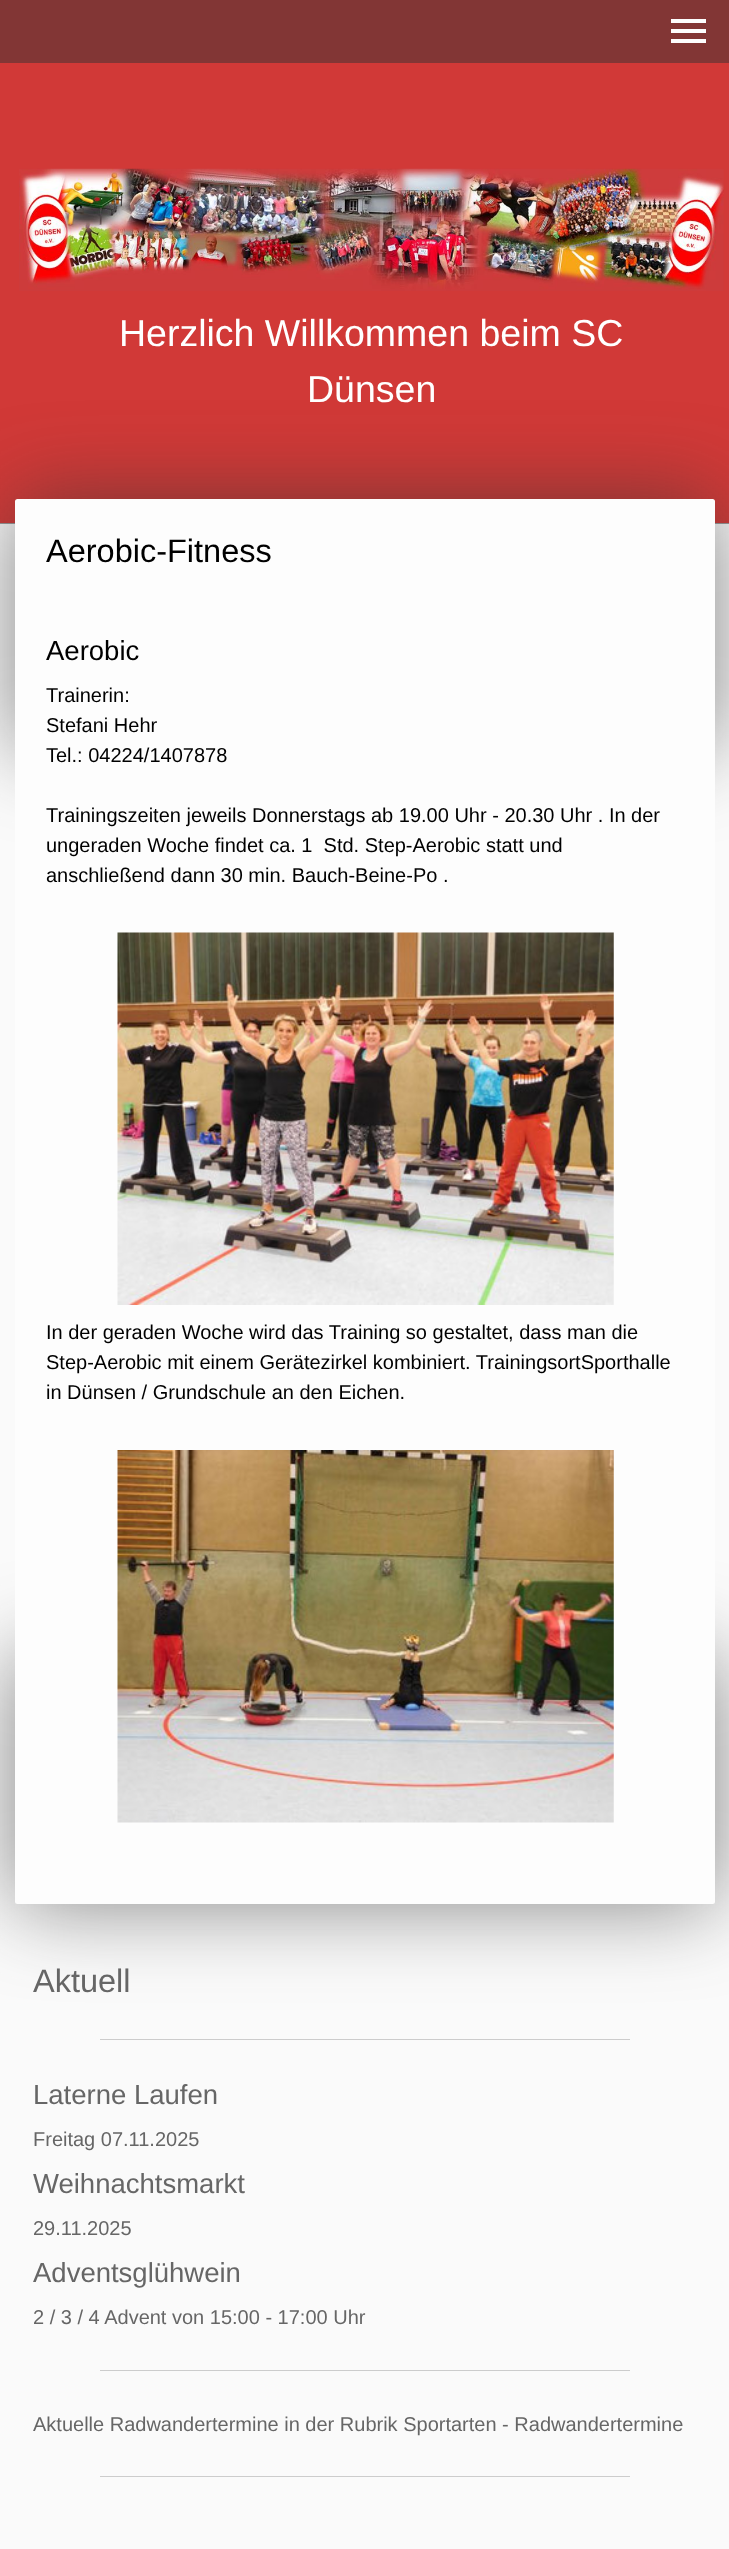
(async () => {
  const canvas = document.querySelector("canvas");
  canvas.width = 729;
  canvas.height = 2549;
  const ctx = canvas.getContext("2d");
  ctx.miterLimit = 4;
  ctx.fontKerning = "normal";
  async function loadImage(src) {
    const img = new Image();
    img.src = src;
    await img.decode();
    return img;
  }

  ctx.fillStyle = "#fafafa";
  ctx.fillRect(0, 0, 729, 2549);
  for (const [x, y, w, h, color] of [
    [0, 63, 729, 460, "#d13937"],
    [0, 0, 729, 63, "#823635"],
    [671, 29, 35, 4, "#fdfdfd"],
    [671, 19, 35, 4, "#fdfdfd"],
    [671, 39, 35, 4, "#fdfdfd"],
  ]) {
    ctx.fillStyle = color;
    ctx.fillRect(x, y, w, h);
  }
  ctx.drawImage(await loadImage("img/1.png"), 19, 168, 705, 123);
  ctx.fillStyle = "#999999";
  ctx.fillRect(0, 523, 729, 1);
  ctx.fillStyle = "rgba(51, 51, 51, 0.6)";
  ctx.filter = "blur(42.5px)";
  ctx.beginPath();
  ctx.rect(15, 499, 700, 250);
  ctx.fill();
  ctx.filter = "none";
  ctx.filter = "blur(42.5px)";
  ctx.beginPath();
  ctx.rect(15, 1654, 700, 250);
  ctx.fill();
  ctx.filter = "none";
  ctx.fillStyle = "#fdfdfd";
  ctx.beginPath();
  ctx.roundRect(15, 499, 700, 1405, 2.5);
  ctx.fill();
  ctx.drawImage(await loadImage("img/2.png"), 117, 932, 497, 373);
  ctx.drawImage(await loadImage("img/3.png"), 117, 1450, 497, 373);
  for (const [x, y, w, h, color] of [
    [100, 2039, 530, 1, "#cccccc"],
    [100, 2370, 530, 1, "#cccccc"],
    [100, 2476, 530, 1, "#cccccc"],
  ]) {
    ctx.fillStyle = color;
    ctx.fillRect(x, y, w, h);
  }
  ctx.font = "37.5px Liberation Sans";
  ctx.fillStyle = "#ffffff";
  ctx.fillText("Herzlich Willkommen beim SC", 119, 346);
  ctx.fillText("Dünsen", 307, 402);
  ctx.font = "32.5px Liberation Sans";
  ctx.fillStyle = "#000000";
  ctx.fillText("Aerobic-Fitness", 46, 562);
  ctx.font = "27.5px Liberation Sans";
  ctx.fillText("Aerobic", 46, 660);
  ctx.font = "20px Liberation Sans";
  for (const [text, x, y] of [
    ["Trainerin:", 46, 702],
    ["Stefani Hehr", 46, 732],
    ["Tel.: 04224/1407878", 46, 762],
    ["Trainingszeiten jeweils Donnerstags ab 19.00 Uhr - 20.30 Uhr . In der", 46, 822],
    ["ungeraden Woche findet ca. 1  Std. Step-Aerobic statt und", 46, 852],
    ["anschließend dann 30 min. Bauch-Beine-Po .", 46, 882],
    ["In der geraden Woche wird das Training so gestaltet, dass man die", 46, 1339],
    ["Step-Aerobic mit einem Gerätezirkel kombiniert. TrainingsortSporthalle", 46, 1369],
    ["in Dünsen / Grundschule an den Eichen.", 46, 1399],
  ]) {
    ctx.fillText(text, x, y);
  }
  ctx.font = "32.5px Liberation Sans";
  ctx.fillStyle = "#666666";
  ctx.fillText("Aktuell", 33, 1992);
  ctx.font = "27.5px Liberation Sans";
  ctx.fillText("Laterne Laufen", 33, 2104);
  ctx.font = "20px Liberation Sans";
  ctx.fillText("Freitag 07.11.2025", 33, 2146);
  ctx.font = "27.5px Liberation Sans";
  ctx.fillText("Weihnachtsmarkt", 33, 2193);
  ctx.font = "20px Liberation Sans";
  ctx.fillText("29.11.2025", 33, 2235);
  ctx.font = "27.5px Liberation Sans";
  ctx.fillText("Adventsglühwein", 33, 2282);
  ctx.font = "20px Liberation Sans";
  ctx.fillText("2 / 3 / 4 Advent von 15:00 - 17:00 Uhr", 33, 2324);
  ctx.fillText("Aktuelle Radwandertermine in der Rubrik Sportarten - Radwandertermine", 33, 2431);
})();
